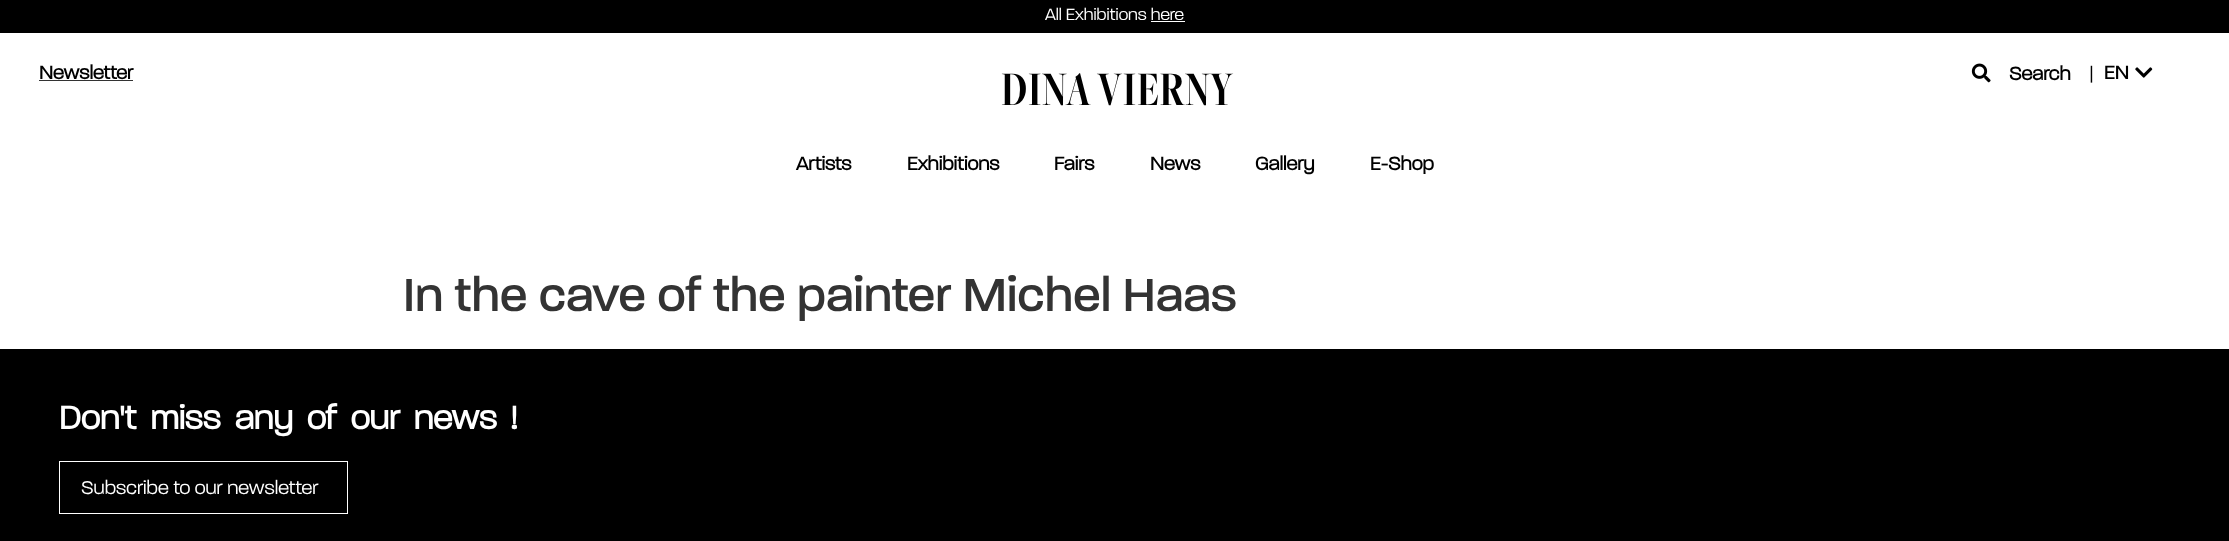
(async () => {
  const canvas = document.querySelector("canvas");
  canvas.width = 2229;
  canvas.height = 541;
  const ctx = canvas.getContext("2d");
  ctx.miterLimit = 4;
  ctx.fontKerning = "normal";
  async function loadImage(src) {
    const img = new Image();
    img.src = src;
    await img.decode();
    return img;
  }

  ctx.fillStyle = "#ffffff";
  ctx.fillRect(0, 0, 2229, 541);
  for (const [x, y, w, h, color] of [
    [0, 0, 2229, 33, "#000000"],
    [1151, 21, 34, 1, "#ffffff"],
    [39, 80, 94, 1, "#333333"],
  ]) {
    ctx.fillStyle = color;
    ctx.fillRect(x, y, w, h);
  }
  ctx.drawImage(await loadImage("img/1.png"), 1971, 63, 20, 20);
  ctx.drawImage(await loadImage("img/2.png"), 2135, 67, 18, 11);
  ctx.fillStyle = "#000000";
  ctx.fillRect(0, 349, 2229, 192);
  ctx.strokeStyle = "#ffffff";
  ctx.strokeRect(59.5, 461.5, 288, 52);
  ctx.font = "300 17.5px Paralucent";
  ctx.fillStyle = "#ffffff";
  ctx.fillText("All Exhibitions here", 1045, 20);
  ctx.font = "bold 20px Paralucent";
  ctx.fillStyle = "#000000";
  ctx.fillText("Newsletter", 39, 79);
  ctx.letterSpacing = "0.9px";
  ctx.font = "600 50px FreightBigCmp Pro";
  ctx.fillText("DINA VIERNY", 1001, 105);
  ctx.letterSpacing = "0px";
  ctx.font = "bold 20px Paralucent";
  ctx.fillText("Search", 2009, 80);
  ctx.font = "20px Roboto";
  ctx.fillText("|", 2089, 80);
  ctx.font = "bold 20px Paralucent";
  for (const [text, x, y] of [
    ["EN", 2104, 79],
    ["Artists", 796, 170],
    ["Exhibitions", 907, 170],
    ["Fairs", 1054, 170],
    ["News", 1150, 170],
    ["Gallery", 1255, 170],
    ["E-Shop", 1370, 170],
  ]) {
    ctx.fillText(text, x, y);
  }
  ctx.font = "500 50px Paralucent";
  ctx.fillStyle = "#333333";
  ctx.fillText("In the cave of the painter Michel Haas", 403, 311);
  ctx.wordSpacing = "6.25px";
  ctx.font = "bold 35px Paralucent";
  ctx.fillStyle = "#ffffff";
  ctx.fillText("Don't miss any of our news !", 59, 429);
  ctx.wordSpacing = "0px";
  ctx.font = "300 20px Paralucent";
  ctx.fillText("Subscribe to our newsletter", 81, 494);
})();
